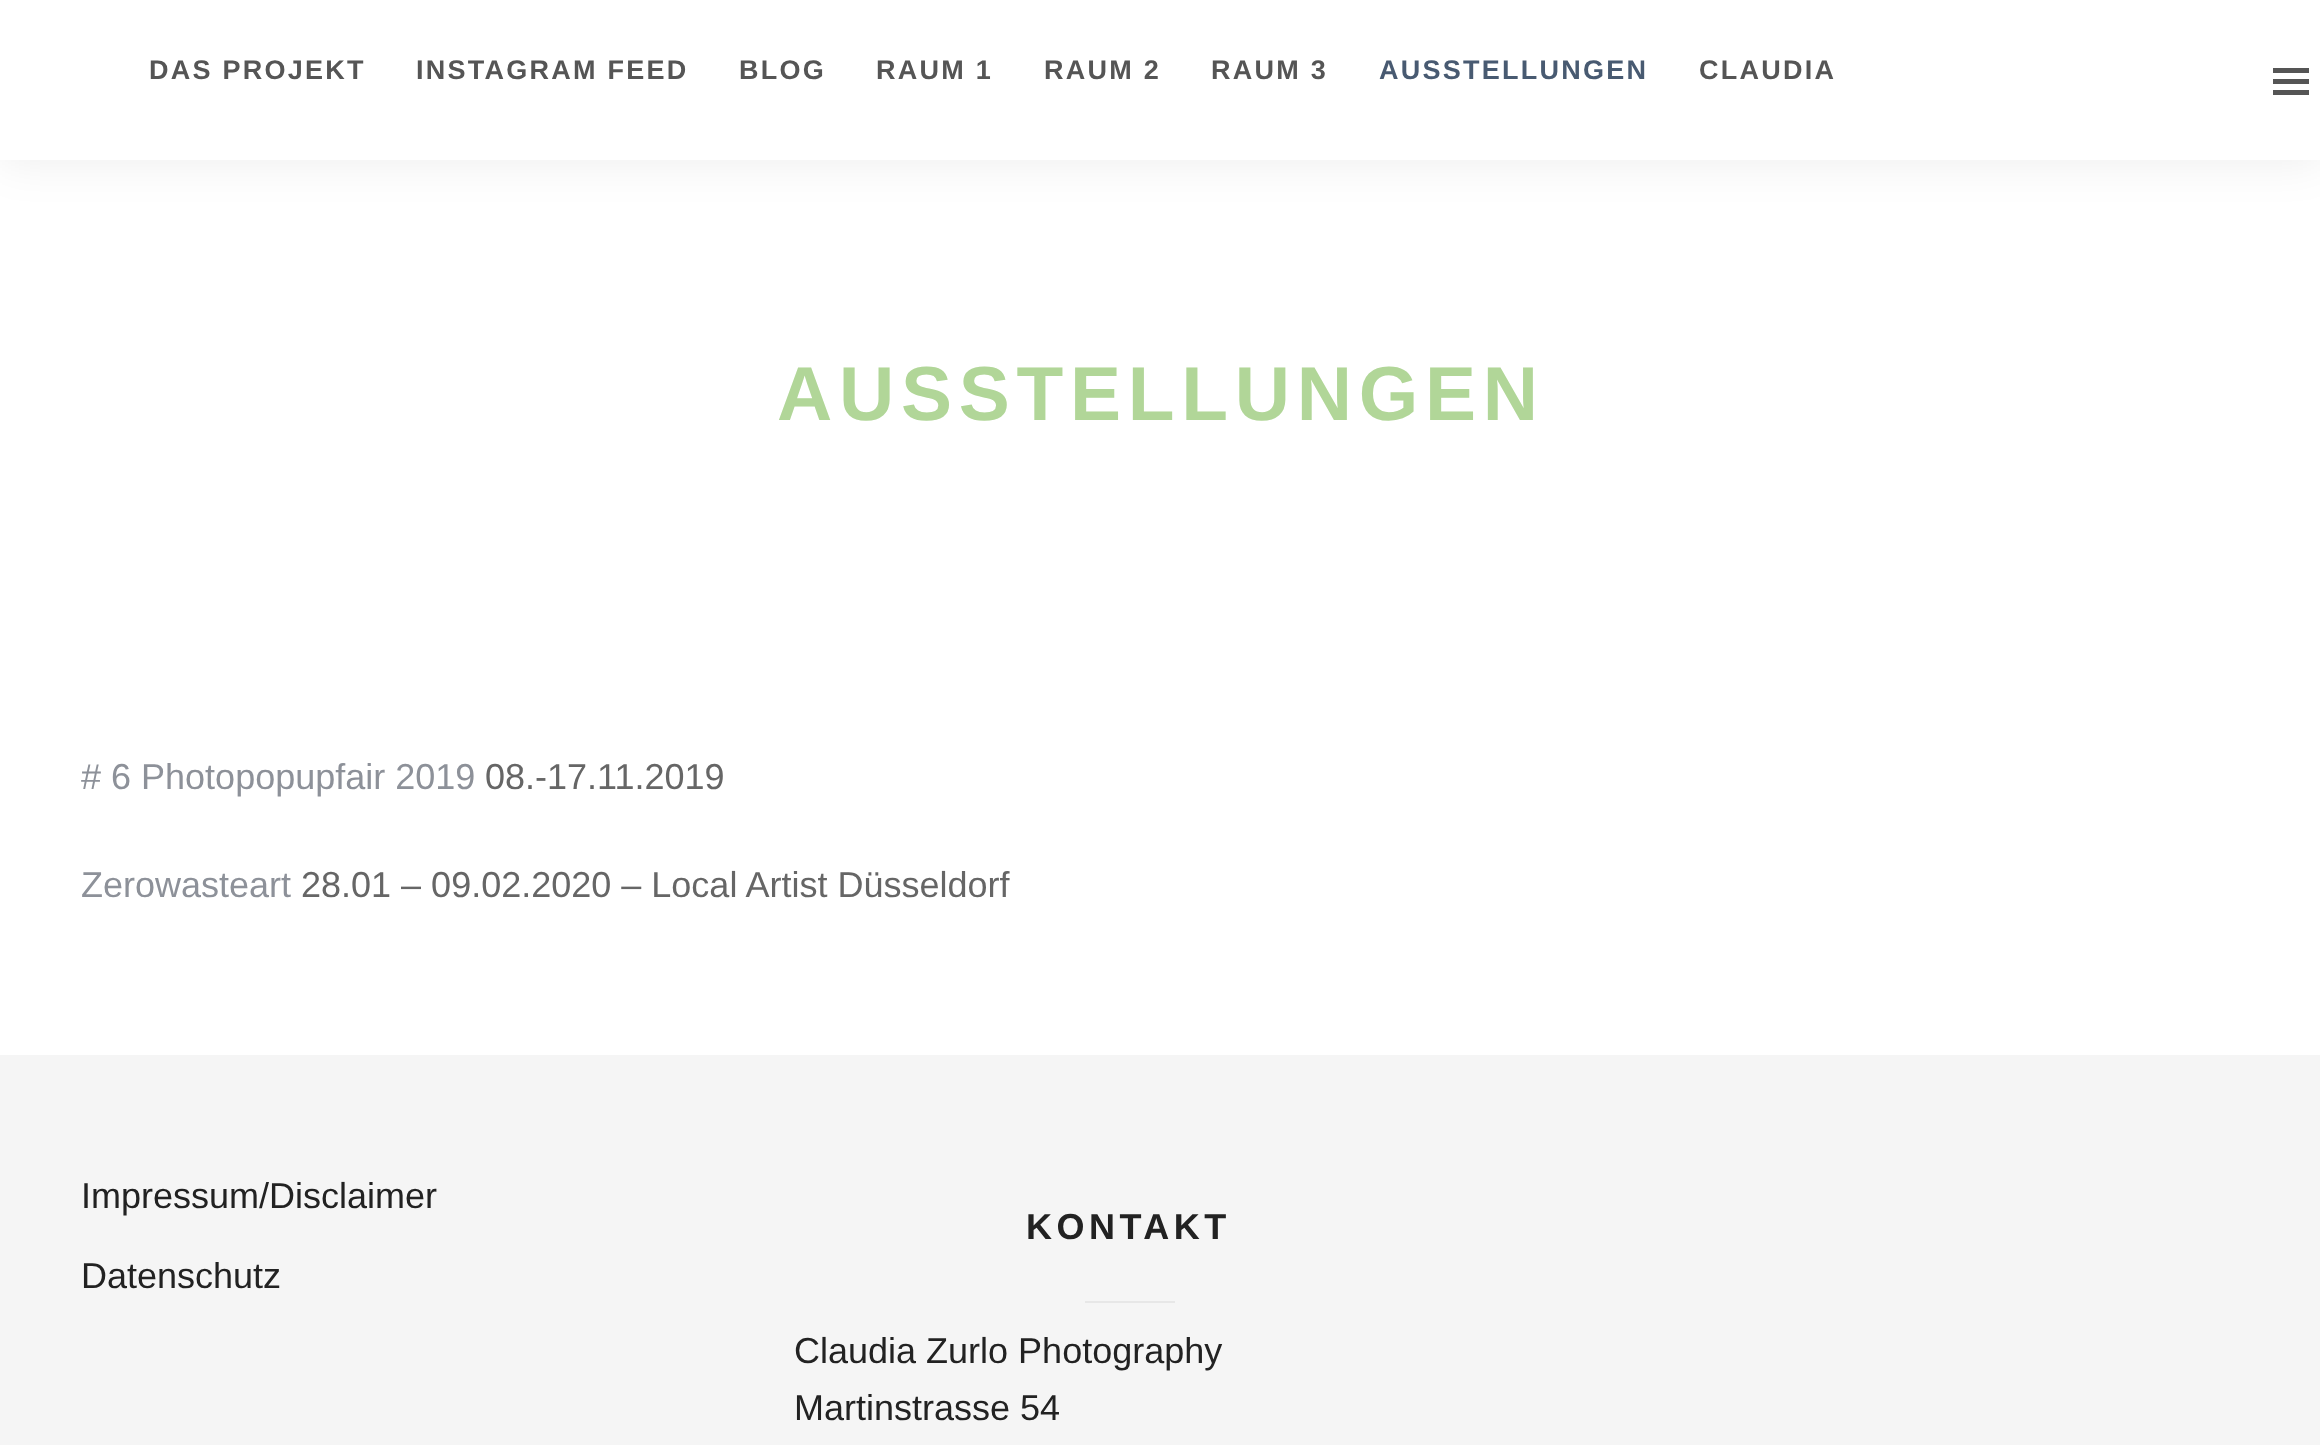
(async () => {
  const canvas = document.querySelector("canvas");
  canvas.width = 2320;
  canvas.height = 1445;
  const ctx = canvas.getContext("2d");
  ctx.miterLimit = 4;
  ctx.fontKerning = "normal";

  ctx.fillStyle = "#ffffff";
  ctx.fillRect(0, 0, 2320, 1445);
  ctx.fillStyle = "rgba(0, 0, 0, 0.07)";
  ctx.filter = "blur(22.5px)";
  ctx.beginPath();
  ctx.rect(0, 2, 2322, 160);
  ctx.fill();
  ctx.filter = "none";
  for (const [x, y, w, h, color] of [
    [0, 0, 2320, 160, "#ffffff"],
    [2273, 68, 36, 5, "#555555"],
    [2273, 79, 36, 5, "#555555"],
    [2273, 90, 36, 5, "#555555"],
    [0, 1055, 2320, 390, "#f5f5f5"],
    [1085, 1301, 90, 2, "#e7e7e7"],
  ]) {
    ctx.fillStyle = color;
    ctx.fillRect(x, y, w, h);
  }
  ctx.letterSpacing = "2.25px";
  ctx.font = "bold 27px Liberation Sans";
  ctx.fillStyle = "#555555";
  for (const [text, x, y] of [
    ["DAS PROJEKT", 149, 79],
    ["INSTAGRAM FEED", 416, 79],
    ["BLOG", 739, 79],
    ["RAUM 1", 876, 79],
    ["RAUM 2", 1044, 79],
    ["RAUM 3", 1211, 79],
  ]) {
    ctx.fillText(text, x, y);
  }
  ctx.fillStyle = "#485a71";
  ctx.fillText("AUSSTELLUNGEN", 1379, 79);
  ctx.fillStyle = "#555555";
  ctx.fillText("CLAUDIA", 1699, 79);
  ctx.letterSpacing = "6.75px";
  ctx.font = "bold 76.5px Liberation Sans";
  ctx.fillStyle = "#b1d698";
  ctx.fillText("AUSSTELLUNGEN", 777, 420);
  ctx.letterSpacing = "0px";
  ctx.font = "36px Liberation Sans";
  ctx.fillStyle = "#8d9199";
  ctx.fillText("# 6 Photopopupfair 2019", 81, 789);
  ctx.fillStyle = "#666666";
  ctx.fillText("08.-17.11.2019", 485, 789);
  ctx.fillStyle = "#8d9199";
  ctx.fillText("Zerowasteart", 81, 897);
  ctx.fillStyle = "#666666";
  ctx.fillText("28.01 – 09.02.2020 – Local Artist Düsseldorf", 301, 897);
  ctx.fillStyle = "#222222";
  ctx.fillText("Impressum/Disclaimer", 81, 1208);
  ctx.fillText("Datenschutz", 81, 1288);
  ctx.letterSpacing = "4.5px";
  ctx.font = "bold 36px Liberation Sans";
  ctx.fillText("KONTAKT", 1026, 1239);
  ctx.letterSpacing = "0px";
  ctx.font = "36px Liberation Sans";
  ctx.fillText("Claudia Zurlo Photography", 794, 1363);
  ctx.fillText("Martinstrasse 54", 794, 1420);
})();
